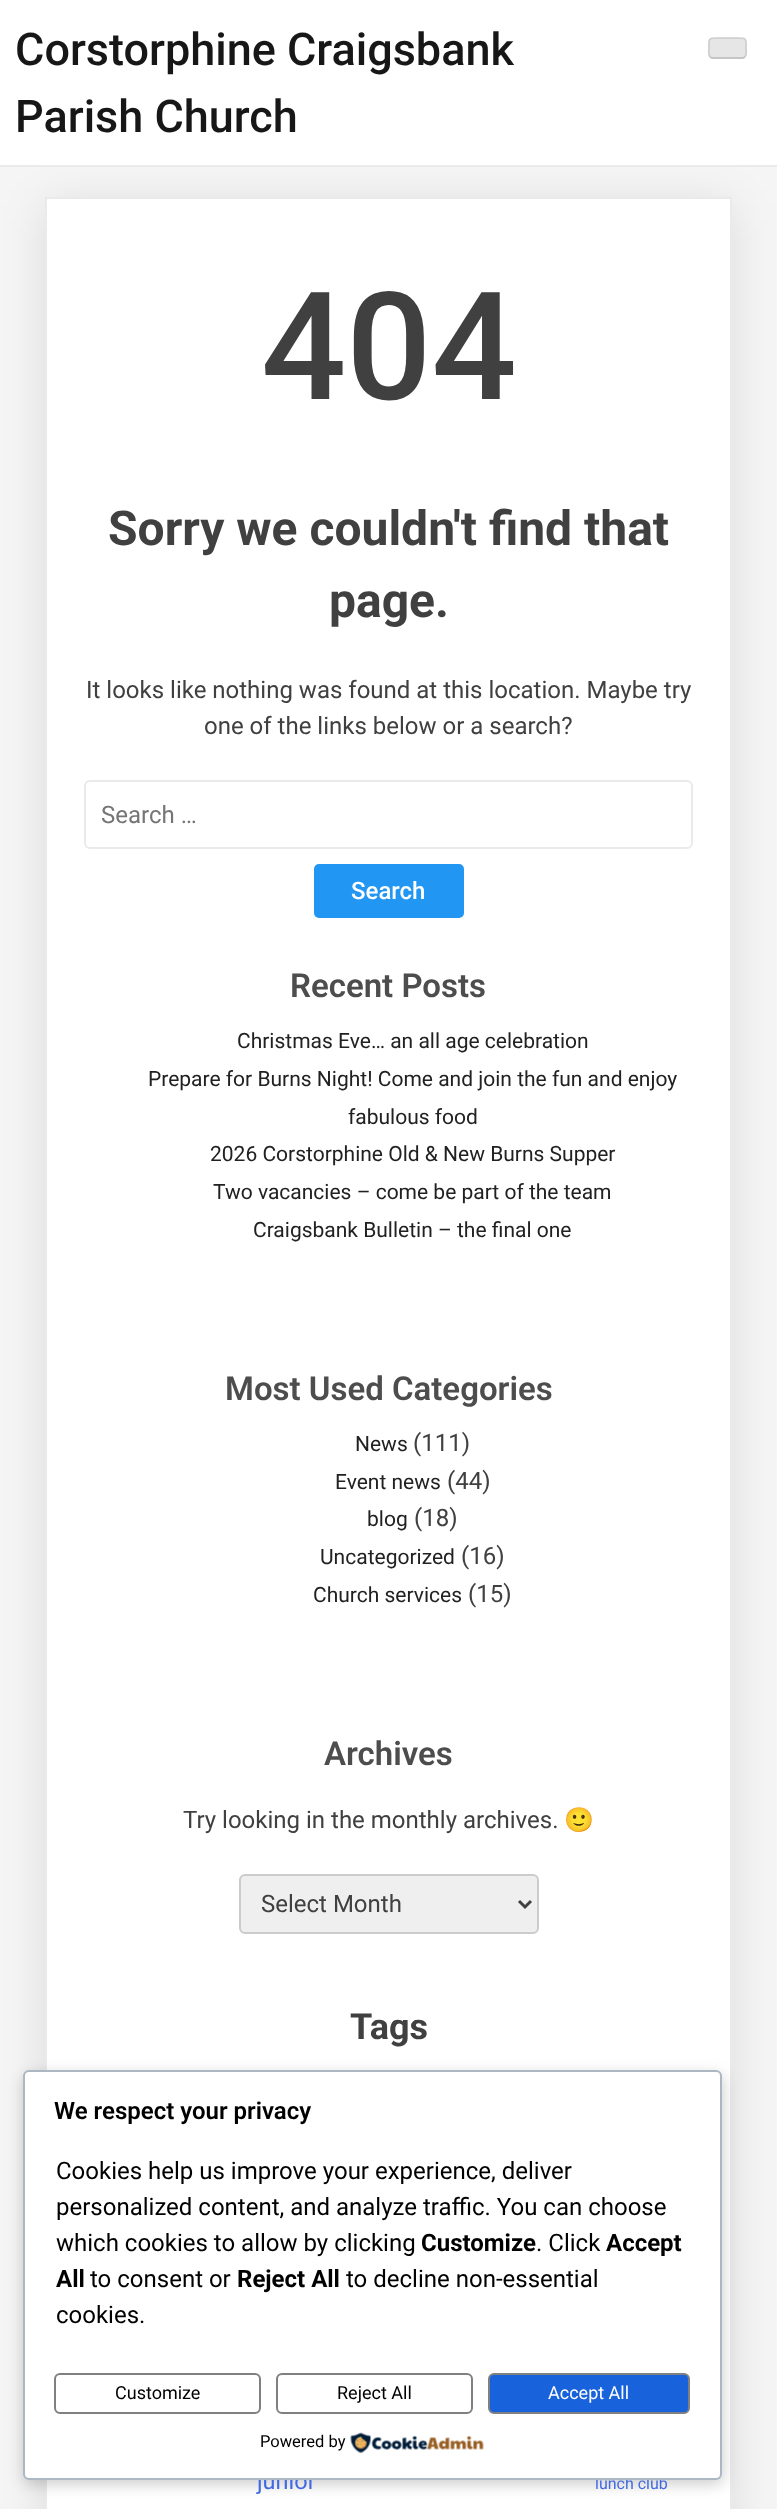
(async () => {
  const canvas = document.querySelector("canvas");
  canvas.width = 777;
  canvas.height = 2509;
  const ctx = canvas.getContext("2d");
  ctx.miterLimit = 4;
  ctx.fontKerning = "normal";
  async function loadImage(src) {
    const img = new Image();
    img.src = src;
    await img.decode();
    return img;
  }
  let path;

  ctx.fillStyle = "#f5f5f5";
  ctx.fillRect(0, 0, 777, 2509);
  ctx.fillStyle = "rgba(0, 0, 0, 0.1)";
  ctx.filter = "blur(22.5px)";
  ctx.beginPath();
  ctx.rect(45, 204, 687, 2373);
  ctx.fill();
  ctx.filter = "none";
  ctx.fillStyle = "#ffffff";
  ctx.fillRect(0, 0, 777, 165);
  ctx.fillStyle = "#eaeaea";
  ctx.fillRect(0, 165, 777, 2);
  ctx.fillStyle = "#e6e6e6";
  ctx.beginPath();
  ctx.roundRect(708, 38, 39, 21, 5);
  ctx.fill();
  path = new Path2D("M745 56.5C744.5 57.5 743.5 58 742.5 58H712.5C711.5 58 710.5 57.5 710 56.5");
  ctx.strokeStyle = "#bbbbbb";
  ctx.lineWidth = 1.5;
  ctx.stroke(path);
  path = new Path2D("M710 56.5C708 54.5 709 50.5 709 48C709 38.5 708 38 717.5 38H737.5C747 38 746 38.5 746 48C746 50.5 747 54.5 745 56.5");
  ctx.strokeStyle = "#cccccc";
  ctx.stroke(path);
  ctx.fillStyle = "#ffffff";
  ctx.beginPath();
  ctx.rect(46, 198, 685, 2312);
  ctx.fill();
  ctx.strokeStyle = "#eaeaea";
  ctx.lineWidth = 2;
  ctx.stroke();
  ctx.beginPath();
  ctx.roundRect(85, 781, 607, 67, 5);
  ctx.stroke();
  ctx.fillStyle = "#2196f3";
  ctx.beginPath();
  ctx.roundRect(314, 864, 150, 54, 5);
  ctx.fill();
  ctx.fillStyle = "#efefef";
  ctx.beginPath();
  ctx.roundRect(240, 1875, 298, 58, 5);
  ctx.fill();
  ctx.strokeStyle = "#cccccc";
  ctx.stroke();
  path = new Path2D("M519 1901L525 1907L531 1901");
  ctx.strokeStyle = "#404040";
  ctx.lineWidth = 3;
  ctx.stroke(path);
  ctx.fillStyle = "rgba(0, 0, 0, 0.2)";
  ctx.filter = "blur(7.5px)";
  ctx.beginPath();
  ctx.roundRect(24, 2075, 699, 409, 6);
  ctx.fill();
  ctx.filter = "none";
  ctx.font = "500 45px Roboto";
  ctx.fillStyle = "#171717";
  ctx.fillText("Corstorphine Craigsbank", 15, 65);
  ctx.fillText("Parish Church", 15, 132);
  ctx.font = "500 150px Roboto";
  ctx.fillStyle = "#404040";
  ctx.fillText("404", 261, 399);
  ctx.font = "bold 48px Roboto";
  ctx.fillText("Sorry we couldn't find that", 108, 545);
  ctx.fillText("page.", 329, 617);
  ctx.font = "24px Roboto";
  ctx.fillText("It looks like nothing was found at this location. Maybe try", 86, 698);
  ctx.fillText("one of the links below or a search?", 204, 734);
  ctx.fillStyle = "#757575";
  ctx.fillText("Search …", 101, 823);
  ctx.font = "500 24px Roboto";
  ctx.fillStyle = "#ffffff";
  ctx.fillText("Search", 351, 899);
  ctx.font = "600 33px Roboto";
  ctx.fillStyle = "#4d4d4d";
  ctx.fillText("Recent Posts", 290, 997);
  ctx.font = "21px Roboto";
  ctx.fillStyle = "#212121";
  for (const [text, x, y] of [
    ["Christmas Eve… an all age celebration", 237, 1048],
    ["Prepare for Burns Night! Come and join the fun and enjoy", 148, 1086],
    ["fabulous food", 348, 1124],
    ["2026 Corstorphine Old & New Burns Supper", 210, 1161],
    ["Two vacancies – come be part of the team", 213, 1199],
    ["Craigsbank Bulletin – the final one", 253, 1237],
  ]) {
    ctx.fillText(text, x, y);
  }
  ctx.font = "600 33px Roboto";
  ctx.fillStyle = "#4d4d4d";
  ctx.fillText("Most Used Categories", 225, 1400);
  ctx.font = "21px Roboto";
  ctx.fillStyle = "#212121";
  ctx.fillText("News", 355, 1451);
  ctx.font = "24px Roboto";
  ctx.fillStyle = "#404040";
  ctx.fillText("(111)", 413, 1451);
  ctx.font = "21px Roboto";
  ctx.fillStyle = "#212121";
  ctx.fillText("Event news", 335, 1489);
  ctx.font = "24px Roboto";
  ctx.fillStyle = "#404040";
  ctx.fillText("(44)", 447, 1489);
  ctx.font = "21px Roboto";
  ctx.fillStyle = "#212121";
  ctx.fillText("blog", 367, 1526);
  ctx.font = "24px Roboto";
  ctx.fillStyle = "#404040";
  ctx.fillText("(18)", 414, 1526);
  ctx.font = "21px Roboto";
  ctx.fillStyle = "#212121";
  ctx.fillText("Uncategorized", 320, 1564);
  ctx.font = "24px Roboto";
  ctx.fillStyle = "#404040";
  ctx.fillText("(16)", 461, 1564);
  ctx.font = "21px Roboto";
  ctx.fillStyle = "#212121";
  ctx.fillText("Church services", 313, 1602);
  ctx.font = "24px Roboto";
  ctx.fillStyle = "#404040";
  ctx.fillText("(15)", 468, 1602);
  ctx.font = "600 33px Roboto";
  ctx.fillStyle = "#4d4d4d";
  ctx.fillText("Archives", 324, 1765);
  ctx.font = "24px Roboto";
  ctx.fillStyle = "#404040";
  ctx.fillText("Try looking in the monthly archives.", 183, 1828);
  ctx.font = "24px Noto Color Emoji";
  ctx.fillText("🙂", 564, 1828);
  ctx.font = "24px Roboto";
  ctx.fillText("Select Month", 261, 1912);
  ctx.font = "bold 36px Roboto";
  ctx.fillText("Tags", 350, 2039);
  ctx.font = "23.5px Roboto";
  ctx.fillStyle = "#4169e1";
  ctx.fillText("junior", 257, 2489);
  ctx.font = "16px Roboto";
  ctx.fillText("lunch club", 595, 2489);
  ctx.fillStyle = "#ffffff";
  ctx.beginPath();
  ctx.roundRect(24, 2071, 697, 408, 5);
  ctx.fill();
  ctx.strokeStyle = "#abb8c3";
  ctx.lineWidth = 2;
  ctx.stroke();
  ctx.font = "600 24px 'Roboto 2'";
  ctx.fillStyle = "#000000";
  ctx.fillText("We respect your privacy", 54, 2119);
  ctx.font = "24px Roboto";
  for (const [text, x, y] of [
    ["Cookies help us improve your experience, deliver", 56, 2179],
    ["personalized content, and analyze traffic. You can choose", 56, 2215],
    ["which cookies to allow by clicking", 56, 2251],
  ]) {
    ctx.fillText(text, x, y);
  }
  ctx.font = "bold 24px Roboto";
  ctx.fillText("Customize", 421, 2251);
  ctx.font = "24px Roboto";
  ctx.fillText(". Click", 536, 2251);
  ctx.font = "bold 24px Roboto";
  ctx.fillText("Accept", 606, 2251);
  ctx.fillText("All", 56, 2287);
  ctx.font = "24px Roboto";
  ctx.fillText("to consent or", 90, 2287);
  ctx.font = "bold 24px Roboto";
  ctx.fillText("Reject All", 237, 2287);
  ctx.font = "24px Roboto";
  ctx.fillText("to decline non-essential", 346, 2287);
  ctx.fillText("cookies.", 56, 2323);
  ctx.beginPath();
  ctx.roundRect(55, 2374, 205, 39, 5);
  ctx.strokeStyle = "#808080";
  ctx.stroke();
  ctx.font = "18px Roboto";
  ctx.fillText("Customize", 115, 2399);
  ctx.beginPath();
  ctx.roundRect(277, 2374, 195, 39, 5);
  ctx.stroke();
  ctx.fillText("Reject All", 337, 2399);
  ctx.fillStyle = "#1863dc";
  ctx.beginPath();
  ctx.roundRect(489, 2374, 200, 39, 5);
  ctx.fill();
  ctx.stroke();
  ctx.fillStyle = "#ffffff";
  ctx.fillText("Accept All", 548, 2399);
  ctx.font = "16.5px Roboto";
  ctx.fillStyle = "#000000";
  ctx.fillText("Powered by", 260, 2447);
  ctx.drawImage(await loadImage("img/1.png"), 350, 2432, 134, 22);
})();
